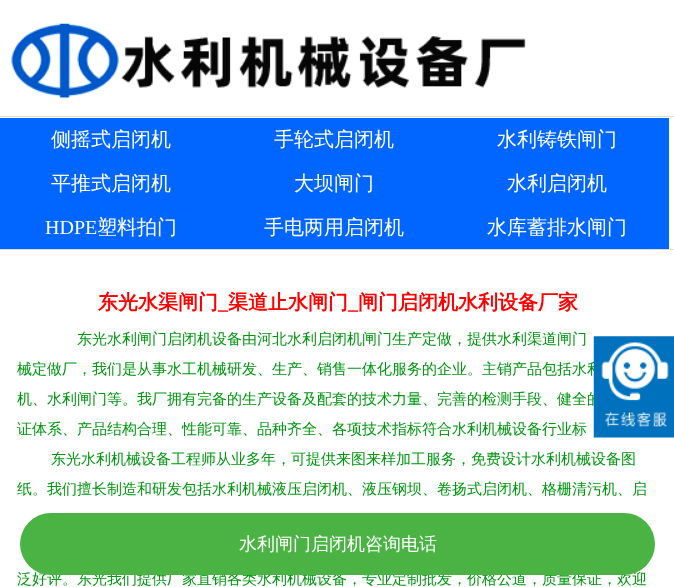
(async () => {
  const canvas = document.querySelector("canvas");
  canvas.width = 674;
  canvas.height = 587;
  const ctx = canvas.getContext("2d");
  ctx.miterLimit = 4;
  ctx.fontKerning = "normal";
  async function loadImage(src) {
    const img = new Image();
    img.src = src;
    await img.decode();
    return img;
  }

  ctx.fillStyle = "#ffffff";
  ctx.fillRect(0, 0, 674, 587);
  ctx.drawImage(await loadImage("img/1.png"), 11, 23, 515, 75);
  for (const [x, y, w, h, color] of [
    [0, 116, 674, 1, "#dddddd"],
    [0, 249, 674, 1, "#dddddd"],
    [0, 118, 669, 43, "#0066ff"],
    [0, 161, 669, 44, "#0066ff"],
    [0, 205, 669, 44, "#0066ff"],
  ]) {
    ctx.fillStyle = color;
    ctx.fillRect(x, y, w, h);
  }
  ctx.fillStyle = "#ffffff";
  ctx.filter = "blur(3px)";
  ctx.beginPath();
  ctx.roundRect(20, 513, 635, 62, 31);
  ctx.fill();
  ctx.filter = "none";
  ctx.font = "500 20px WenQuanYi Zen Hei";
  for (const [text, x, y] of [
    ["侧摇式启闭机", 51, 146],
    ["手轮式启闭机", 274, 146],
    ["水利铸铁闸门", 497, 146],
    ["平推式启闭机", 51, 190],
    ["大坝闸门", 294, 190],
    ["水利启闭机", 507, 190],
  ]) {
    ctx.fillText(text, x, y);
  }
  ctx.font = "20px Liberation Serif";
  ctx.fillText("HDPE", 45, 234);
  ctx.font = "500 20px WenQuanYi Zen Hei";
  for (const [text, x, y] of [
    ["塑料拍门", 97, 234],
    ["手电两用启闭机", 264, 234],
    ["水库蓄排水闸门", 487, 234],
  ]) {
    ctx.fillText(text, x, y);
  }
  ctx.font = "bold 20px WenQuanYi Zen Hei";
  ctx.fillStyle = "#ff0000";
  ctx.fillText("东光水渠闸门", 98, 309);
  ctx.font = "bold 20px Liberation Serif";
  ctx.fillText("_", 218, 309);
  ctx.font = "bold 20px WenQuanYi Zen Hei";
  ctx.fillText("渠道止水闸门", 228, 309);
  ctx.font = "bold 20px Liberation Serif";
  ctx.fillText("_", 348, 309);
  ctx.font = "bold 20px WenQuanYi Zen Hei";
  ctx.fillText("闸门启闭机水利设备厂家", 358, 309);
  ctx.font = "500 15px WenQuanYi Zen Hei";
  ctx.fillStyle = "#009610";
  for (const [text, x, y] of [
    ["东光水利闸门启闭机设备由河北水利启闭机闸门生产定做，提供水利渠道闸门", 77, 344],
    ["械定做厂，我们是从事水工机械研发、生产、销售一体化服务的企业。主销产品包括水利", 17, 374],
    ["机、水利闸门等。我厂拥有完备的生产设备及配套的技术力量、完善的检测手段、健全的", 17, 404],
    ["证体系、产品结构合理、性能可靠、品种齐全、各项技术指标符合水利机械设备行业标", 17, 434],
    ["东光水利机械设备工程师从业多年，可提供来图来样加工服务，免费设计水利机械设备图", 51, 464],
    ["纸。我们擅长制造和研发包括水利机械液压启闭机、液压钢坝、卷扬式启闭机、格栅清污机、启", 17, 494],
    ["泛好评。东光我们提供厂家直销各类水利机械设备，专业定制批发，价格公道，质量保证，欢迎", 17, 584],
  ]) {
    ctx.fillText(text, x, y);
  }
  ctx.drawImage(await loadImage("img/2.png"), 593, 336, 81, 102);
  ctx.fillStyle = "#4ab344";
  ctx.beginPath();
  ctx.roundRect(20, 513, 635, 62, 31);
  ctx.fill();
  ctx.font = "500 18px WenQuanYi Zen Hei";
  ctx.fillStyle = "#ffffff";
  ctx.fillText("水利闸门启闭机咨询电话", 239, 550);
})();
